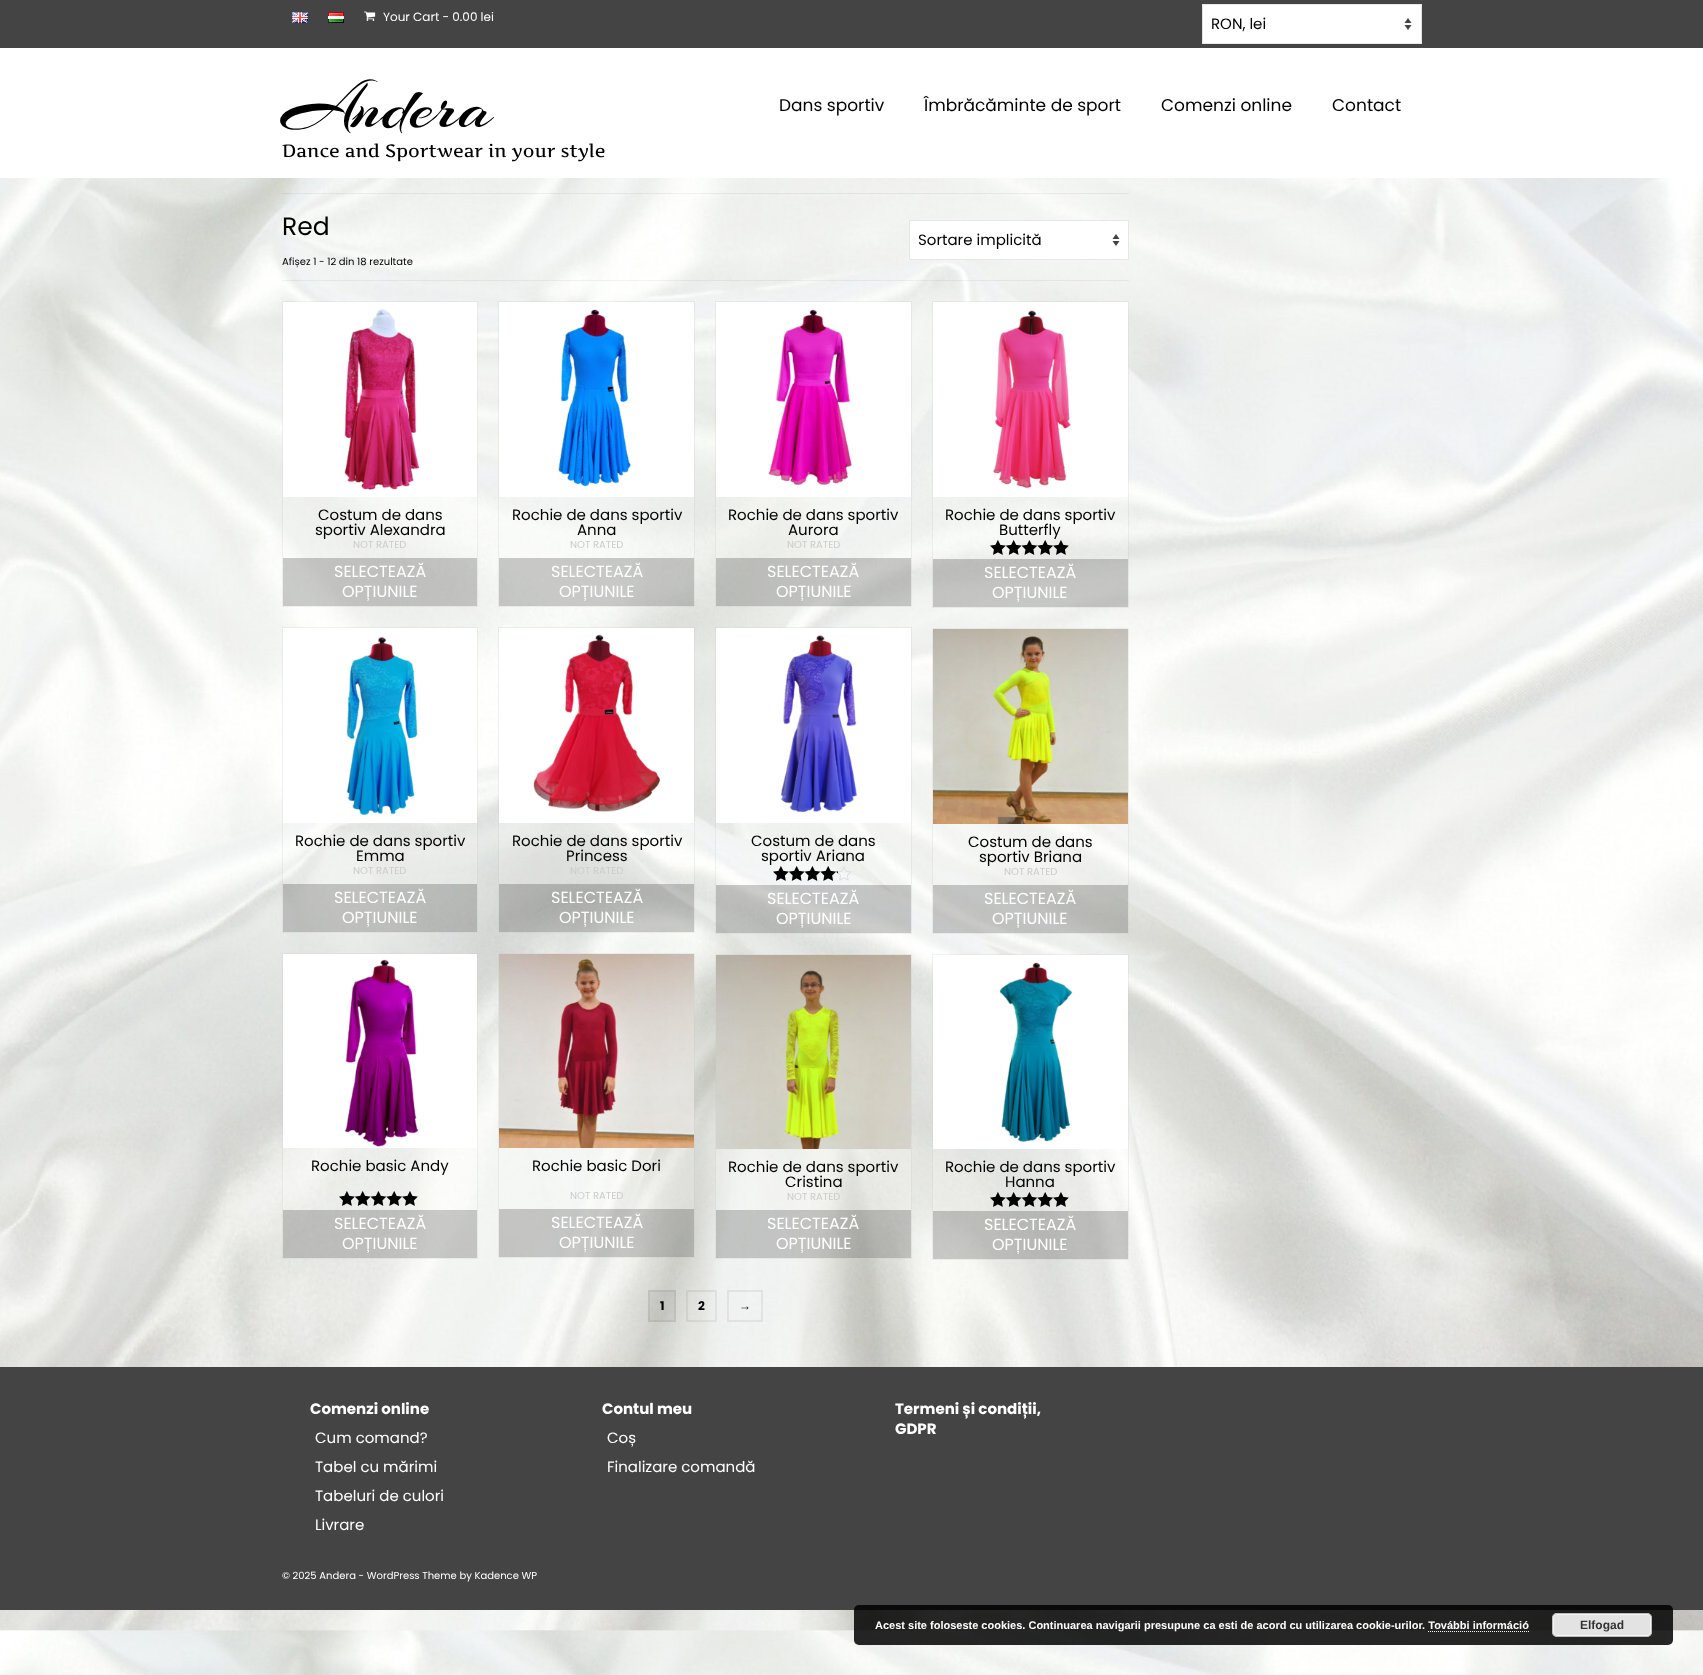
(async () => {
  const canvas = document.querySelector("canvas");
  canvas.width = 1703;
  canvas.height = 1675;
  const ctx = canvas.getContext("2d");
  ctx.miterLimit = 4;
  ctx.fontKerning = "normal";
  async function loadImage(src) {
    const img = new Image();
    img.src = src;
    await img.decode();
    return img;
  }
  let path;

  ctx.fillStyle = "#ffffff";
  ctx.fillRect(0, 0, 1703, 1675);
  ctx.drawImage(await loadImage("img/1.png"), 0, 1610, 1703, 65);
  ctx.fillStyle = "#444444";
  ctx.fillRect(0, 0, 1703, 48);
  ctx.drawImage(await loadImage("img/2.png"), 292, 12, 16, 11);
  ctx.drawImage(await loadImage("img/3.png"), 328, 12, 16, 11);
  ctx.drawImage(await loadImage("img/4.png"), 364, 11, 12, 10);
  ctx.fillStyle = "#ffffff";
  ctx.fillRect(1203, 5, 218, 38);
  ctx.fillStyle = "#444444";
  path = new Path2D("M1404.5 23L1408 18L1411.5 23ZM1411.5 25L1408 30L1404.5 25Z");
  ctx.fill(path);
  ctx.strokeStyle = "#e6e6e6";
  ctx.strokeRect(1202.5, 4.5, 219, 39);
  ctx.drawImage(await loadImage("img/5.png"), 0, 178, 1703, 1189);
  for (const [x, y, w, h, color] of [
    [282, 193, 847, 1, "rgba(0, 0, 0, 0.05)"],
    [282, 280, 847, 1, "rgba(0, 0, 0, 0.05)"],
    [910, 221, 218, 38, "#ffffff"],
  ]) {
    ctx.fillStyle = color;
    ctx.fillRect(x, y, w, h);
  }
  ctx.fillStyle = "#444444";
  path = new Path2D("M1112.5 239L1116 234L1119.5 239ZM1119.5 241L1116 246L1112.5 241Z");
  ctx.fill(path);
  ctx.strokeRect(909.5, 220.5, 219, 39);
  ctx.fillStyle = "rgba(255, 255, 255, 0.2)";
  ctx.fillRect(282, 301, 196, 306);
  ctx.strokeStyle = "rgba(0, 0, 0, 0.05)";
  ctx.strokeRect(282.5, 301.5, 195, 305);
  ctx.drawImage(await loadImage("img/6.png"), 283, 302, 194, 195);
  ctx.fillStyle = "rgba(0, 0, 0, 0.2)";
  ctx.fillRect(283, 558, 194, 48);
  ctx.fillStyle = "rgba(255, 255, 255, 0.2)";
  ctx.fillRect(498, 301, 197, 306);
  ctx.strokeRect(498.5, 301.5, 196, 305);
  ctx.drawImage(await loadImage("img/7.png"), 499, 302, 195, 195);
  ctx.fillStyle = "rgba(0, 0, 0, 0.2)";
  ctx.fillRect(499, 558, 195, 48);
  ctx.fillStyle = "rgba(255, 255, 255, 0.2)";
  ctx.fillRect(715, 301, 197, 306);
  ctx.strokeRect(715.5, 301.5, 196, 305);
  ctx.drawImage(await loadImage("img/8.png"), 716, 302, 195, 195);
  ctx.fillStyle = "rgba(0, 0, 0, 0.2)";
  ctx.fillRect(716, 558, 195, 48);
  ctx.fillStyle = "rgba(255, 255, 255, 0.2)";
  ctx.fillRect(932, 301, 197, 307);
  ctx.strokeRect(932.5, 301.5, 196, 306);
  ctx.drawImage(await loadImage("img/9.png"), 933, 302, 195, 195);
  ctx.drawImage(await loadImage("img/10.png"), 990, 540, 79, 15);
  ctx.drawImage(await loadImage("img/11.png"), 990, 540, 79, 15);
  ctx.fillStyle = "rgba(0, 0, 0, 0.2)";
  ctx.fillRect(933, 559, 195, 48);
  ctx.fillStyle = "rgba(255, 255, 255, 0.2)";
  ctx.fillRect(282, 627, 196, 306);
  ctx.strokeRect(282.5, 627.5, 195, 305);
  ctx.drawImage(await loadImage("img/12.png"), 283, 628, 194, 195);
  ctx.fillStyle = "rgba(0, 0, 0, 0.2)";
  ctx.fillRect(283, 884, 194, 48);
  ctx.fillStyle = "rgba(255, 255, 255, 0.2)";
  ctx.fillRect(498, 627, 197, 306);
  ctx.strokeRect(498.5, 627.5, 196, 305);
  ctx.drawImage(await loadImage("img/13.png"), 499, 628, 195, 195);
  ctx.fillStyle = "rgba(0, 0, 0, 0.2)";
  ctx.fillRect(499, 884, 195, 48);
  ctx.fillStyle = "rgba(255, 255, 255, 0.2)";
  ctx.fillRect(715, 627, 197, 307);
  ctx.strokeRect(715.5, 627.5, 196, 306);
  ctx.drawImage(await loadImage("img/14.png"), 716, 628, 195, 195);
  ctx.drawImage(await loadImage("img/15.png"), 773, 866, 79, 15);
  ctx.drawImage(await loadImage("img/16.png"), 773, 866, 65, 15);
  ctx.fillStyle = "rgba(0, 0, 0, 0.2)";
  ctx.fillRect(716, 885, 195, 48);
  ctx.fillStyle = "rgba(255, 255, 255, 0.2)";
  ctx.fillRect(932, 628, 197, 306);
  ctx.strokeRect(932.5, 628.5, 196, 305);
  ctx.drawImage(await loadImage("img/17.png"), 933, 629, 195, 195);
  ctx.fillStyle = "rgba(0, 0, 0, 0.2)";
  ctx.fillRect(933, 885, 195, 48);
  ctx.fillStyle = "rgba(255, 255, 255, 0.2)";
  ctx.fillRect(282, 953, 196, 306);
  ctx.strokeRect(282.5, 953.5, 195, 305);
  ctx.drawImage(await loadImage("img/18.png"), 283, 954, 194, 194);
  ctx.drawImage(await loadImage("img/19.png"), 339, 1191, 79, 15);
  ctx.drawImage(await loadImage("img/20.png"), 339, 1191, 79, 15);
  ctx.fillStyle = "rgba(0, 0, 0, 0.2)";
  ctx.fillRect(283, 1210, 194, 48);
  ctx.fillStyle = "rgba(255, 255, 255, 0.2)";
  ctx.fillRect(498, 953, 197, 305);
  ctx.strokeRect(498.5, 953.5, 196, 304);
  ctx.drawImage(await loadImage("img/21.png"), 499, 954, 195, 194);
  ctx.fillStyle = "rgba(0, 0, 0, 0.2)";
  ctx.fillRect(499, 1209, 195, 48);
  ctx.fillStyle = "rgba(255, 255, 255, 0.2)";
  ctx.fillRect(715, 954, 197, 305);
  ctx.strokeRect(715.5, 954.5, 196, 304);
  ctx.drawImage(await loadImage("img/22.png"), 716, 955, 195, 194);
  ctx.fillStyle = "rgba(0, 0, 0, 0.2)";
  ctx.fillRect(716, 1210, 195, 48);
  ctx.fillStyle = "rgba(255, 255, 255, 0.2)";
  ctx.fillRect(932, 954, 197, 306);
  ctx.strokeRect(932.5, 954.5, 196, 305);
  ctx.drawImage(await loadImage("img/23.png"), 933, 955, 195, 194);
  ctx.drawImage(await loadImage("img/24.png"), 990, 1192, 79, 15);
  ctx.drawImage(await loadImage("img/25.png"), 990, 1192, 79, 15);
  ctx.fillStyle = "rgba(0, 0, 0, 0.2)";
  ctx.fillRect(933, 1211, 195, 48);
  ctx.fillStyle = "rgba(0, 0, 0, 0.05)";
  ctx.fillRect(648, 1290, 28, 32);
  ctx.strokeStyle = "rgba(0, 0, 0, 0.06)";
  ctx.lineWidth = 2;
  ctx.strokeRect(649, 1291, 26, 30);
  ctx.strokeRect(687, 1291, 29, 30);
  ctx.strokeRect(728, 1291, 34, 30);
  ctx.fillStyle = "#444444";
  ctx.fillRect(0, 1367, 1703, 243);
  ctx.fillStyle = "rgba(0, 0, 0, 0.85)";
  ctx.beginPath();
  ctx.roundRect(854, 1605, 819, 40, 5);
  ctx.fill();
  ctx.fillStyle = "#e3e3e3";
  ctx.beginPath();
  ctx.roundRect(1552, 1613, 100, 24, 5);
  ctx.fill();
  ctx.beginPath();
  ctx.roundRect(1553.5, 1614.5, 97, 21, 3.5);
  ctx.strokeStyle = "#f6f6f6";
  ctx.lineWidth = 1;
  ctx.stroke();
  ctx.beginPath();
  ctx.roundRect(1552.5, 1613.5, 99, 23, 4.5);
  ctx.strokeStyle = "#bbbbbb";
  ctx.stroke();
  path = new Path2D("M1428 1631.5H1529");
  ctx.strokeStyle = "#ffffff";
  ctx.setLineDash([1, 1]);
  ctx.stroke(path);
  ctx.font = "12px Poppins";
  ctx.fillStyle = "#ffffff";
  ctx.fillText("Your Cart - 0.00 lei", 383, 21);
  ctx.font = "15px Poppins";
  ctx.fillStyle = "#000000";
  ctx.fillText("RON, lei", 1211, 29);
  ctx.font = "70px Arizonia";
  ctx.fillText("Andera", 282, 127);
  ctx.font = "18px Artifika";
  ctx.fillText("Dance and Sportwear in your style", 282, 157);
  ctx.font = "17px Poppins";
  for (const [text, x, y] of [
    ["Dans sportiv", 779, 111],
    ["Îmbrăcăminte de sport", 924, 111],
    ["Comenzi online", 1161, 111],
    ["Contact", 1332, 111],
  ]) {
    ctx.fillText(text, x, y);
  }
  ctx.font = "25px Poppins";
  ctx.fillText("Red", 282, 235);
  ctx.font = "15px Poppins";
  ctx.fillText("Sortare implicită", 918, 245);
  ctx.font = "10px Poppins";
  ctx.fillText("Afișez 1 - 12 din 18 rezultate", 282, 265);
  ctx.font = "15px Poppins";
  ctx.fillText("Costum de dans", 318, 520);
  ctx.fillText("sportiv Alexandra", 315, 535);
  ctx.font = "10px Poppins";
  ctx.fillStyle = "#cccccc";
  ctx.fillText("NOT RATED", 353, 548);
  ctx.font = "16px Poppins";
  ctx.fillStyle = "#ffffff";
  ctx.fillText("SELECTEAZĂ", 334, 577);
  ctx.fillText("OPȚIUNILE", 342, 597);
  ctx.font = "15px Poppins";
  ctx.fillStyle = "#000000";
  ctx.fillText("Rochie de dans sportiv", 512, 520);
  ctx.fillText("Anna", 577, 535);
  ctx.font = "10px Poppins";
  ctx.fillStyle = "#cccccc";
  ctx.fillText("NOT RATED", 570, 548);
  ctx.font = "16px Poppins";
  ctx.fillStyle = "#ffffff";
  ctx.fillText("SELECTEAZĂ", 551, 577);
  ctx.fillText("OPȚIUNILE", 559, 597);
  ctx.font = "15px Poppins";
  ctx.fillStyle = "#000000";
  ctx.fillText("Rochie de dans sportiv", 728, 520);
  ctx.fillText("Aurora", 788, 535);
  ctx.font = "10px Poppins";
  ctx.fillStyle = "#cccccc";
  ctx.fillText("NOT RATED", 787, 548);
  ctx.font = "16px Poppins";
  ctx.fillStyle = "#ffffff";
  ctx.fillText("SELECTEAZĂ", 767, 577);
  ctx.fillText("OPȚIUNILE", 776, 597);
  ctx.font = "15px Poppins";
  ctx.fillStyle = "#000000";
  ctx.fillText("Rochie de dans sportiv", 945, 520);
  ctx.fillText("Butterfly", 999, 535);
  ctx.font = "16px Poppins";
  ctx.fillStyle = "#ffffff";
  ctx.fillText("SELECTEAZĂ", 984, 578);
  ctx.fillText("OPȚIUNILE", 992, 598);
  ctx.font = "15px Poppins";
  ctx.fillStyle = "#000000";
  ctx.fillText("Rochie de dans sportiv", 295, 846);
  ctx.fillText("Emma", 356, 861);
  ctx.font = "10px Poppins";
  ctx.fillStyle = "#cccccc";
  ctx.fillText("NOT RATED", 353, 874);
  ctx.font = "16px Poppins";
  ctx.fillStyle = "#ffffff";
  ctx.fillText("SELECTEAZĂ", 334, 903);
  ctx.fillText("OPȚIUNILE", 342, 923);
  ctx.font = "15px Poppins";
  ctx.fillStyle = "#000000";
  ctx.fillText("Rochie de dans sportiv", 512, 846);
  ctx.fillText("Princess", 566, 861);
  ctx.font = "10px Poppins";
  ctx.fillStyle = "#cccccc";
  ctx.fillText("NOT RATED", 570, 874);
  ctx.font = "16px Poppins";
  ctx.fillStyle = "#ffffff";
  ctx.fillText("SELECTEAZĂ", 551, 903);
  ctx.fillText("OPȚIUNILE", 559, 923);
  ctx.font = "15px Poppins";
  ctx.fillStyle = "#000000";
  ctx.fillText("Costum de dans", 751, 846);
  ctx.fillText("sportiv Ariana", 761, 861);
  ctx.font = "16px Poppins";
  ctx.fillStyle = "#ffffff";
  ctx.fillText("SELECTEAZĂ", 767, 904);
  ctx.fillText("OPȚIUNILE", 776, 924);
  ctx.font = "15px Poppins";
  ctx.fillStyle = "#000000";
  ctx.fillText("Costum de dans", 968, 847);
  ctx.fillText("sportiv Briana", 979, 862);
  ctx.font = "10px Poppins";
  ctx.fillStyle = "#cccccc";
  ctx.fillText("NOT RATED", 1004, 875);
  ctx.font = "16px Poppins";
  ctx.fillStyle = "#ffffff";
  ctx.fillText("SELECTEAZĂ", 984, 904);
  ctx.fillText("OPȚIUNILE", 992, 924);
  ctx.font = "15px Poppins";
  ctx.fillStyle = "#000000";
  ctx.fillText("Rochie basic Andy", 311, 1171);
  ctx.font = "16px Poppins";
  ctx.fillStyle = "#ffffff";
  ctx.fillText("SELECTEAZĂ", 334, 1229);
  ctx.fillText("OPȚIUNILE", 342, 1249);
  ctx.font = "15px Poppins";
  ctx.fillStyle = "#000000";
  ctx.fillText("Rochie basic Dori", 532, 1171);
  ctx.font = "10px Poppins";
  ctx.fillStyle = "#cccccc";
  ctx.fillText("NOT RATED", 570, 1199);
  ctx.font = "16px Poppins";
  ctx.fillStyle = "#ffffff";
  ctx.fillText("SELECTEAZĂ", 551, 1228);
  ctx.fillText("OPȚIUNILE", 559, 1248);
  ctx.font = "15px Poppins";
  ctx.fillStyle = "#000000";
  ctx.fillText("Rochie de dans sportiv", 728, 1172);
  ctx.fillText("Cristina", 785, 1187);
  ctx.font = "10px Poppins";
  ctx.fillStyle = "#cccccc";
  ctx.fillText("NOT RATED", 787, 1200);
  ctx.font = "16px Poppins";
  ctx.fillStyle = "#ffffff";
  ctx.fillText("SELECTEAZĂ", 767, 1229);
  ctx.fillText("OPȚIUNILE", 776, 1249);
  ctx.font = "15px Poppins";
  ctx.fillStyle = "#000000";
  ctx.fillText("Rochie de dans sportiv", 945, 1172);
  ctx.fillText("Hanna", 1005, 1187);
  ctx.font = "16px Poppins";
  ctx.fillStyle = "#ffffff";
  ctx.fillText("SELECTEAZĂ", 984, 1230);
  ctx.fillText("OPȚIUNILE", 992, 1250);
  ctx.font = "bold 12px Poppins";
  ctx.fillStyle = "#000000";
  ctx.fillText("1", 660, 1310);
  ctx.fillText("2", 698, 1310);
  ctx.font = "bold 12px Liberation Serif";
  ctx.fillText("→", 739, 1310);
  ctx.font = "bold 15px Poppins";
  ctx.fillStyle = "#ffffff";
  ctx.fillText("Comenzi online", 310, 1414);
  ctx.font = "15px Poppins";
  for (const [text, x, y] of [
    ["Cum comand?", 315, 1443],
    ["Tabel cu mărimi", 315, 1472],
    ["Tabeluri de culori", 315, 1501],
    ["Livrare", 315, 1530],
  ]) {
    ctx.fillText(text, x, y);
  }
  ctx.font = "bold 15px Poppins";
  ctx.fillText("Contul meu", 602, 1414);
  ctx.font = "15px Poppins";
  ctx.fillText("Coș", 607, 1443);
  ctx.fillText("Finalizare comandă", 607, 1472);
  ctx.font = "bold 15px Poppins";
  ctx.fillText("Termeni și condiții,", 895, 1414);
  ctx.fillText("GDPR", 895, 1434);
  ctx.font = "10px Poppins";
  ctx.fillText("© 2025 Andera - WordPress Theme by Kadence WP", 282, 1579);
  ctx.font = "bold 11px Liberation Sans";
  ctx.fillText("Acest site foloseste cookies. Continuarea navigarii presupune ca esti de acord cu utilizarea cookie-urilor. További információ", 875, 1629);
  ctx.font = "bold 12px Liberation Sans";
  ctx.fillStyle = "#333333";
  ctx.fillText("Elfogad", 1580, 1629);
})();
